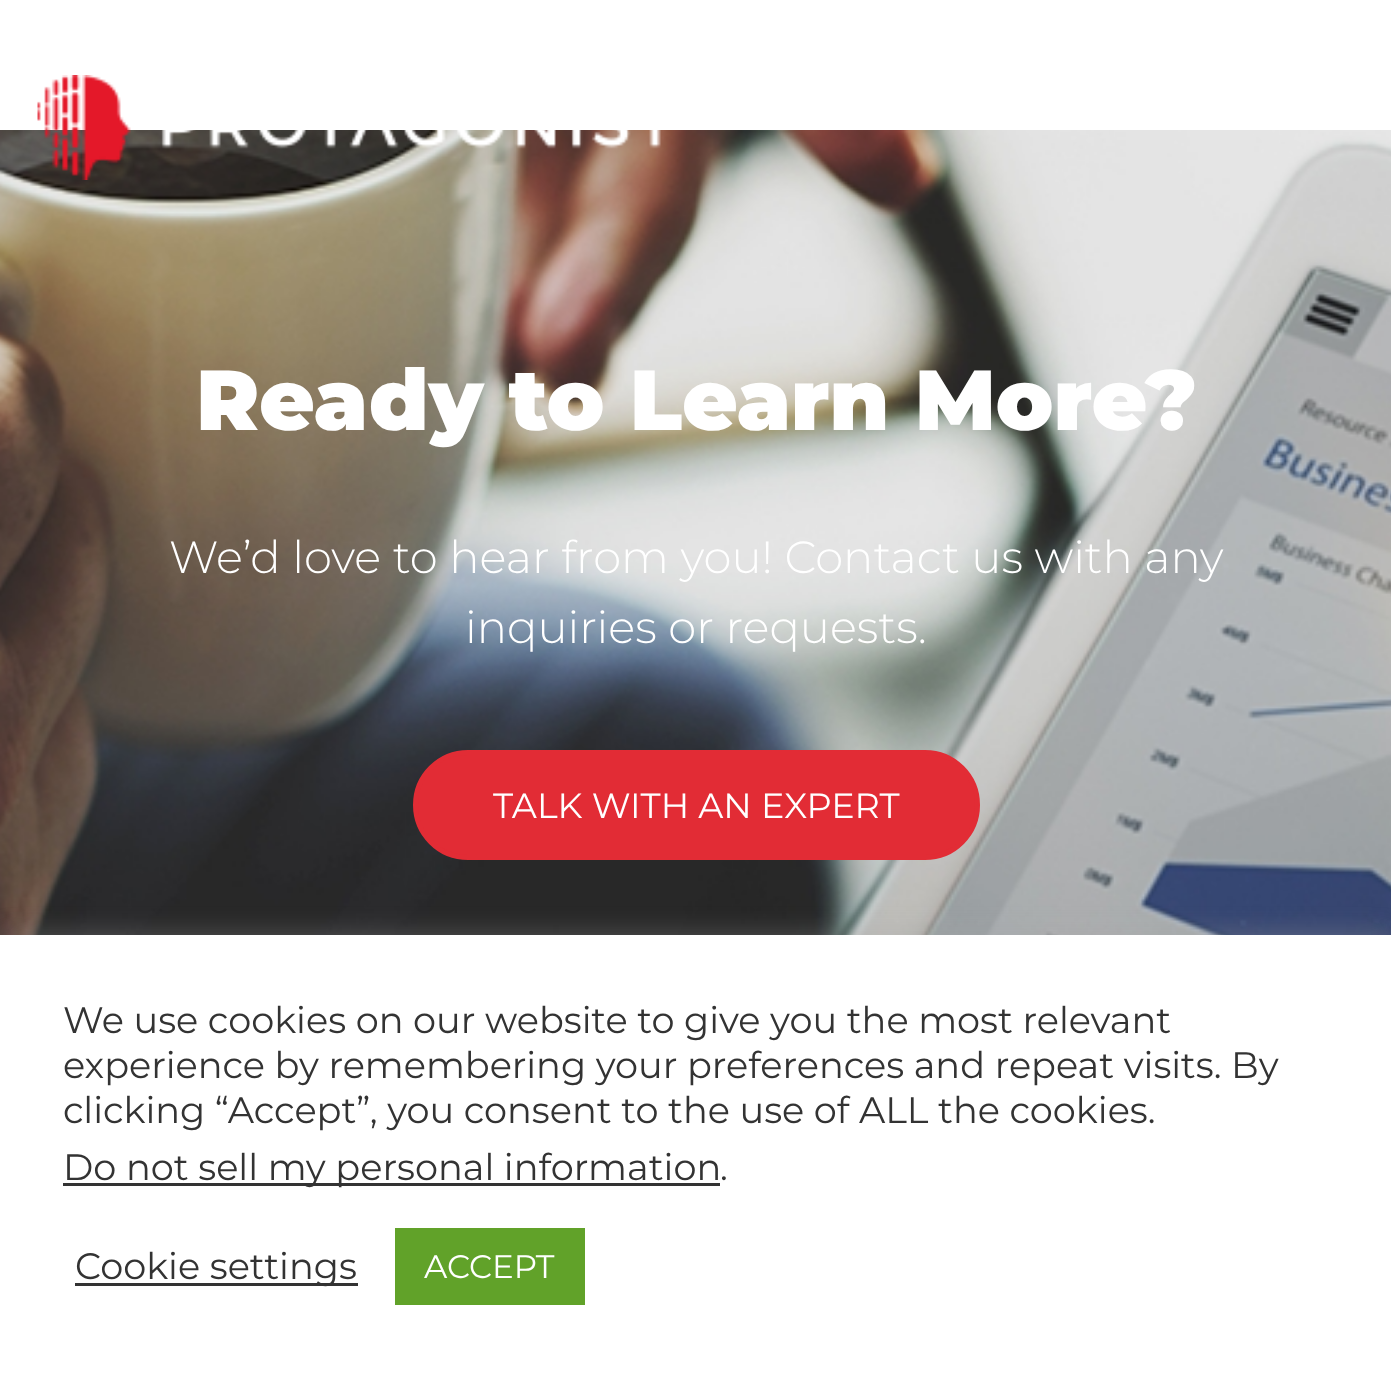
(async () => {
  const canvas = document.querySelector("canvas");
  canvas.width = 1391;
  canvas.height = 1378;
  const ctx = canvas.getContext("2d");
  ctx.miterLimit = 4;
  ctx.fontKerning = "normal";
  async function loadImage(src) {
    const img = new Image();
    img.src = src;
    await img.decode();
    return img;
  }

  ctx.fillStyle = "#ffffff";
  ctx.fillRect(0, 0, 1391, 1378);
  ctx.drawImage(await loadImage("img/2.png"), 0, 130, 1391, 805);
  ctx.drawImage(await loadImage("img/1.png"), 37, 75, 624, 105);
  ctx.fillStyle = "#e22c35";
  ctx.beginPath();
  ctx.roundRect(415.5, 752.5, 562, 105, 52.5);
  ctx.fill();
  ctx.strokeStyle = "#e22c35";
  ctx.lineWidth = 5;
  ctx.stroke();
  ctx.fillStyle = "rgba(172, 171, 171, 0.3)";
  ctx.filter = "blur(12.5px)";
  ctx.beginPath();
  ctx.rect(0, 933, 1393, 445);
  ctx.fill();
  ctx.filter = "none";
  for (const [x, y, w, h, color] of [
    [0, 935, 1391, 443, "#ffffff"],
    [63, 1183, 657, 3, "#333333"],
    [75, 1283, 283, 3, "#333333"],
    [395, 1228, 190, 77, "#61a229"],
  ]) {
    ctx.fillStyle = color;
    ctx.fillRect(x, y, w, h);
  }
  ctx.font = "900 85px Montserrat";
  ctx.fillStyle = "#ffffff";
  ctx.fillText("Ready to Learn More?", 196, 430);
  ctx.font = "300 45px Montserrat";
  ctx.fillText("We’d love to hear from you! Contact us with any", 169, 573);
  ctx.fillText("inquiries or requests.", 465, 643);
  ctx.font = "35px Montserrat";
  ctx.fillText("TALK WITH AN EXPERT", 493, 818);
  ctx.font = "36.7px Montserrat";
  ctx.fillStyle = "#333333";
  for (const [text, x, y] of [
    ["We use cookies on our website to give you the most relevant", 63, 1033],
    ["experience by remembering your preferences and repeat visits. By", 63, 1078],
    ["clicking “Accept”, you consent to the use of ALL the cookies.", 63, 1123],
    ["Do not sell my personal information", 63, 1180],
    [".", 720, 1180],
    ["Cookie settings", 75, 1279],
  ]) {
    ctx.fillText(text, x, y);
  }
  ctx.font = "32.5px Montserrat";
  ctx.fillStyle = "#ffffff";
  ctx.fillText("ACCEPT", 424, 1278);
})();
